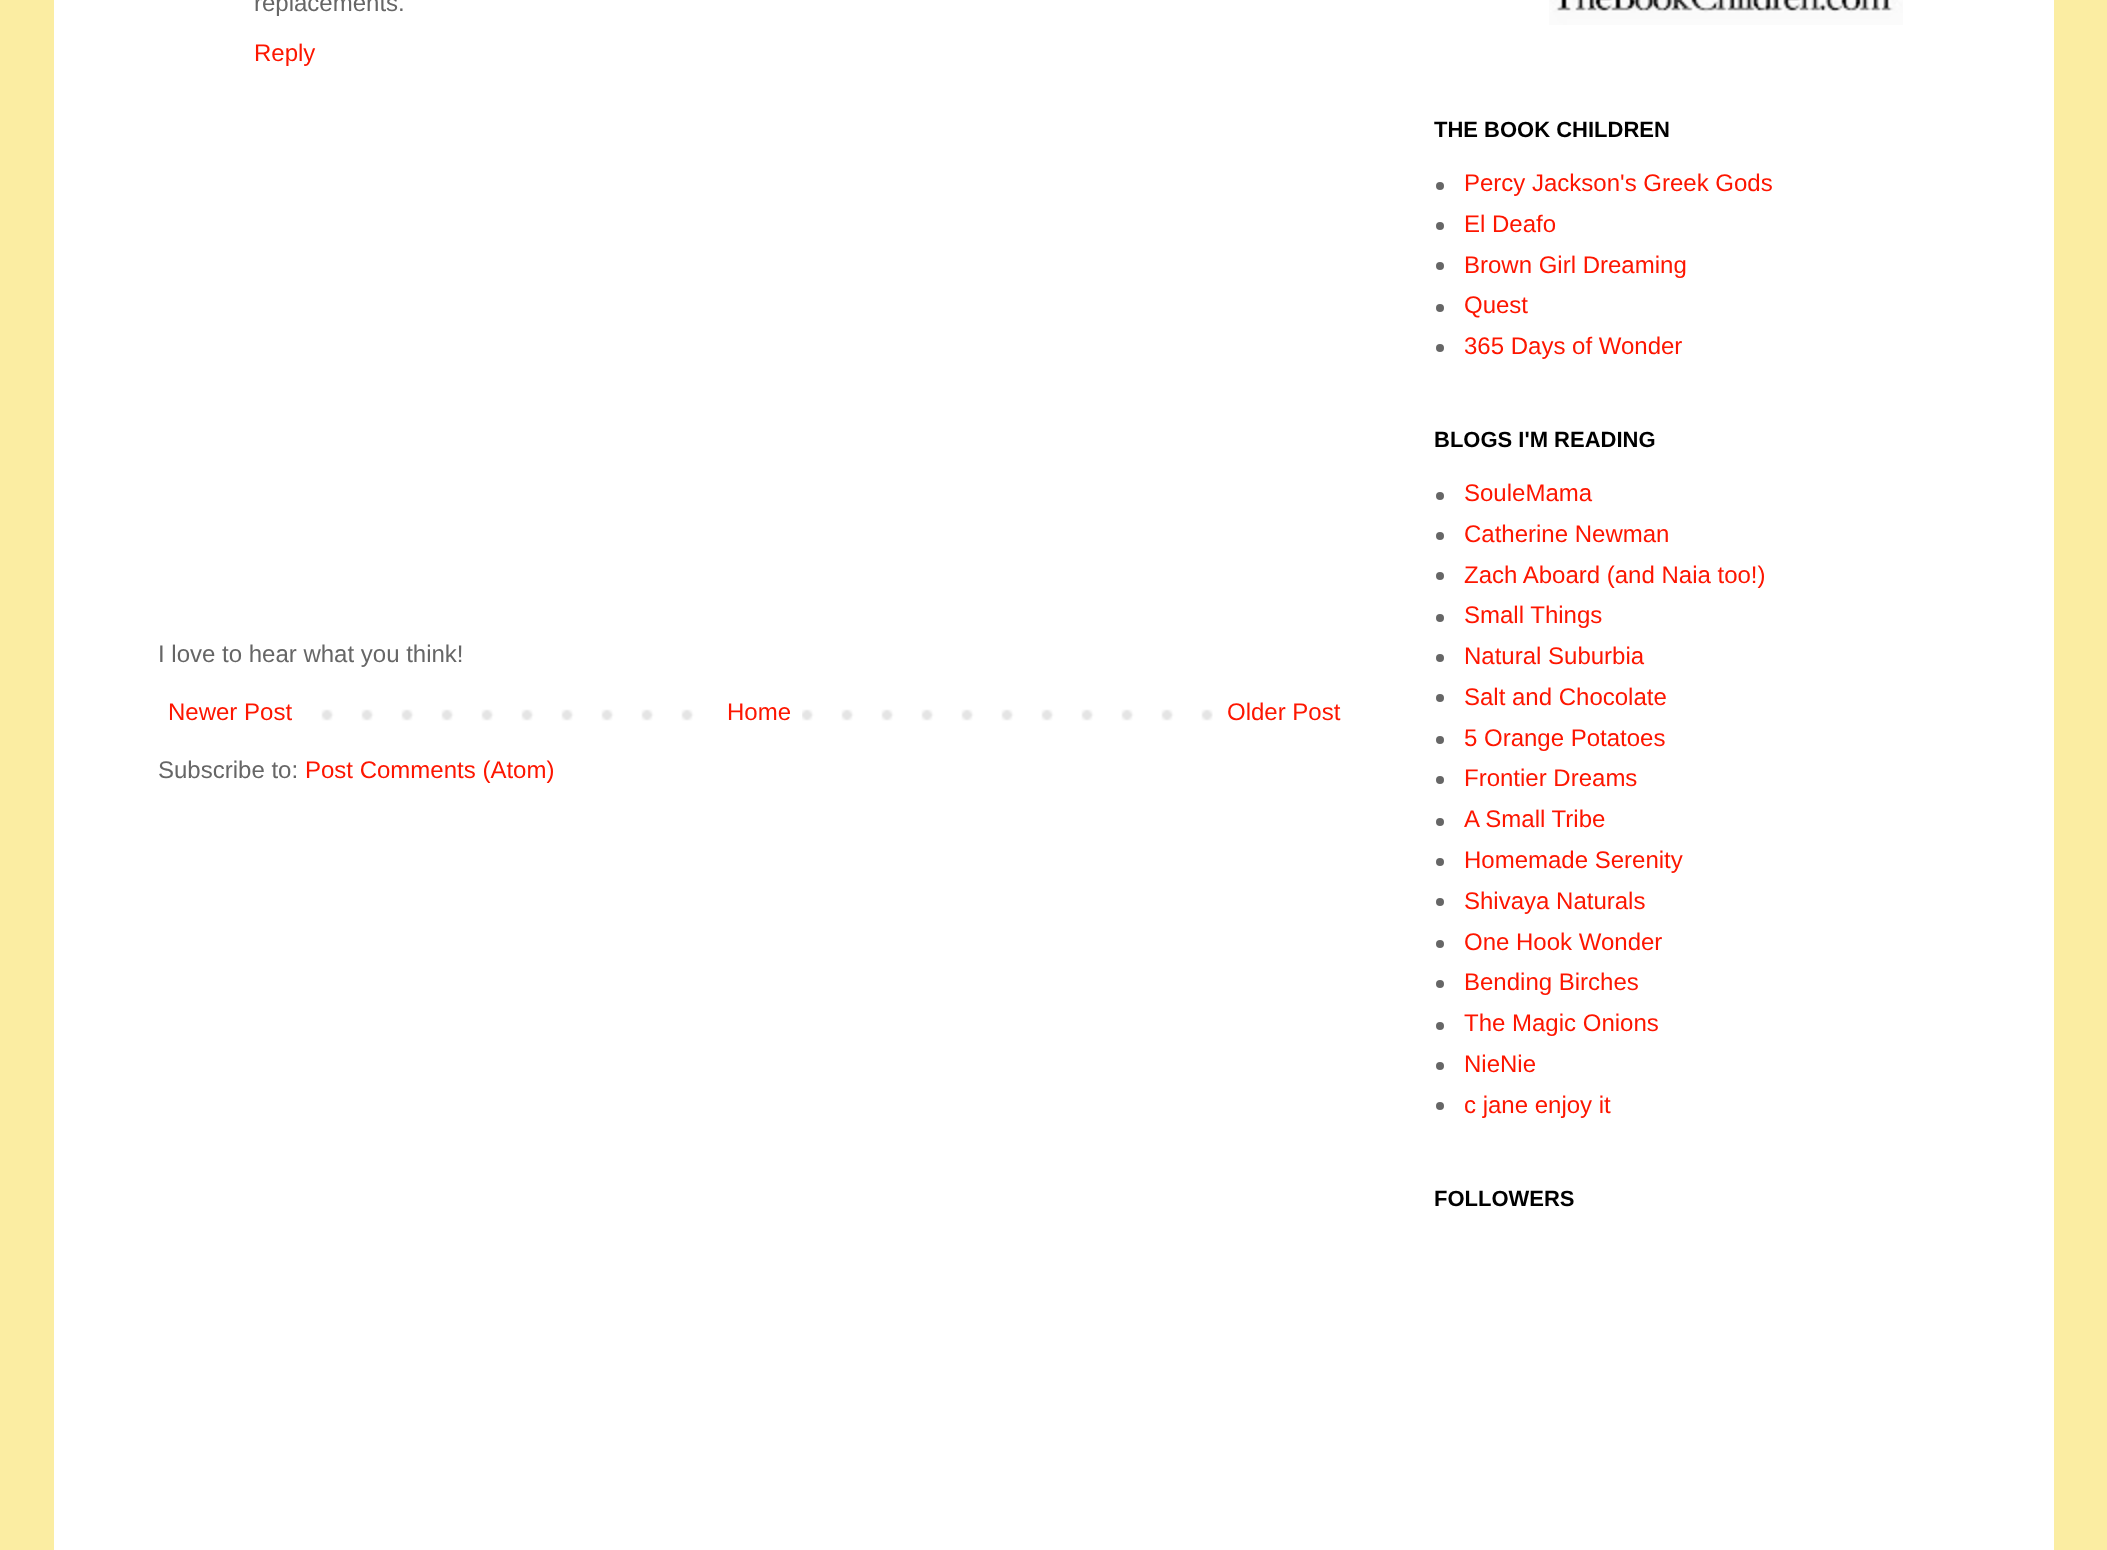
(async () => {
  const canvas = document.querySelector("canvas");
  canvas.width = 2107;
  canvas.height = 1550;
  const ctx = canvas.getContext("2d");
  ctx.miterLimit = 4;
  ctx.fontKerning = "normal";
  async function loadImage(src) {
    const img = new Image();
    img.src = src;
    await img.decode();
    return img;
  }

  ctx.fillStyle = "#fbeda2";
  ctx.fillRect(0, 0, 2107, 1550);
  ctx.fillStyle = "#ffffff";
  ctx.fillRect(54, 0, 2000, 1550);
  ctx.drawImage(await loadImage("img/1.png"), 321, 709, 892, 12);
  ctx.fillRect(721, 709, 81, 12);
  ctx.drawImage(await loadImage("img/2.png"), 1549, 0, 354, 25);
  ctx.fillStyle = "#666666";
  ctx.beginPath();
  ctx.arc(1440, 186, 4, 0, Math.PI * 2);
  ctx.fill();
  ctx.beginPath();
  ctx.arc(1440, 226, 4, 0, Math.PI * 2);
  ctx.fill();
  ctx.beginPath();
  ctx.arc(1440, 266, 4, 0, Math.PI * 2);
  ctx.fill();
  ctx.beginPath();
  ctx.arc(1440, 308, 4, 0, Math.PI * 2);
  ctx.fill();
  ctx.beginPath();
  ctx.arc(1440, 348, 4, 0, Math.PI * 2);
  ctx.fill();
  ctx.beginPath();
  ctx.arc(1440, 496, 4, 0, Math.PI * 2);
  ctx.fill();
  ctx.beginPath();
  ctx.arc(1440, 536, 4, 0, Math.PI * 2);
  ctx.fill();
  ctx.beginPath();
  ctx.arc(1440, 576, 4, 0, Math.PI * 2);
  ctx.fill();
  ctx.beginPath();
  ctx.arc(1440, 618, 4, 0, Math.PI * 2);
  ctx.fill();
  ctx.beginPath();
  ctx.arc(1440, 658, 4, 0, Math.PI * 2);
  ctx.fill();
  ctx.beginPath();
  ctx.arc(1440, 698, 4, 0, Math.PI * 2);
  ctx.fill();
  ctx.beginPath();
  ctx.arc(1440, 740, 4, 0, Math.PI * 2);
  ctx.fill();
  ctx.beginPath();
  ctx.arc(1440, 780, 4, 0, Math.PI * 2);
  ctx.fill();
  ctx.beginPath();
  ctx.arc(1440, 822, 4, 0, Math.PI * 2);
  ctx.fill();
  ctx.beginPath();
  ctx.arc(1440, 862, 4, 0, Math.PI * 2);
  ctx.fill();
  ctx.beginPath();
  ctx.arc(1440, 902, 4, 0, Math.PI * 2);
  ctx.fill();
  ctx.beginPath();
  ctx.arc(1440, 944, 4, 0, Math.PI * 2);
  ctx.fill();
  ctx.beginPath();
  ctx.arc(1440, 984, 4, 0, Math.PI * 2);
  ctx.fill();
  ctx.beginPath();
  ctx.arc(1440, 1026, 4, 0, Math.PI * 2);
  ctx.fill();
  ctx.beginPath();
  ctx.arc(1440, 1066, 4, 0, Math.PI * 2);
  ctx.fill();
  ctx.beginPath();
  ctx.arc(1440, 1106, 4, 0, Math.PI * 2);
  ctx.fill();
  ctx.font = "24px Liberation Sans";
  ctx.fillText("replacements.", 254, 11);
  ctx.fillStyle = "#fd1600";
  ctx.fillText("Reply", 254, 61);
  ctx.fillStyle = "#666666";
  ctx.fillText("I love to hear what you think!", 158, 662);
  ctx.fillStyle = "#fd1600";
  for (const [text, x, y] of [
    ["Newer Post", 168, 720],
    ["Home", 727, 720],
    ["Older Post", 1227, 720],
  ]) {
    ctx.fillText(text, x, y);
  }
  ctx.fillStyle = "#666666";
  ctx.fillText("Subscribe to:", 158, 778);
  ctx.fillStyle = "#fd1600";
  ctx.fillText("Post Comments (Atom)", 305, 778);
  ctx.font = "bold 22px Liberation Sans";
  ctx.fillStyle = "#000000";
  ctx.fillText("THE BOOK CHILDREN", 1434, 137);
  ctx.font = "24px Liberation Sans";
  ctx.fillStyle = "#fd1600";
  for (const [text, x, y] of [
    ["Percy Jackson's Greek Gods", 1464, 191],
    ["El Deafo", 1464, 232],
    ["Brown Girl Dreaming", 1464, 273],
    ["Quest", 1464, 313],
    ["365 Days of Wonder", 1464, 354],
  ]) {
    ctx.fillText(text, x, y);
  }
  ctx.font = "bold 22px Liberation Sans";
  ctx.fillStyle = "#000000";
  ctx.fillText("BLOGS I'M READING", 1434, 447);
  ctx.font = "24px Liberation Sans";
  ctx.fillStyle = "#fd1600";
  for (const [text, x, y] of [
    ["SouleMama", 1464, 501],
    ["Catherine Newman", 1464, 542],
    ["Zach Aboard (and Naia too!)", 1464, 583],
    ["Small Things", 1464, 623],
    ["Natural Suburbia", 1464, 664],
    ["Salt and Chocolate", 1464, 705],
    ["5 Orange Potatoes", 1464, 746],
    ["Frontier Dreams", 1464, 786],
    ["A Small Tribe", 1464, 827],
    ["Homemade Serenity", 1464, 868],
    ["Shivaya Naturals", 1464, 909],
    ["One Hook Wonder", 1464, 950],
    ["Bending Birches", 1464, 990],
    ["The Magic Onions", 1464, 1031],
    ["NieNie", 1464, 1072],
    ["c jane enjoy it", 1464, 1113],
  ]) {
    ctx.fillText(text, x, y);
  }
  ctx.font = "bold 22px Liberation Sans";
  ctx.fillStyle = "#000000";
  ctx.fillText("FOLLOWERS", 1434, 1206);
})();
